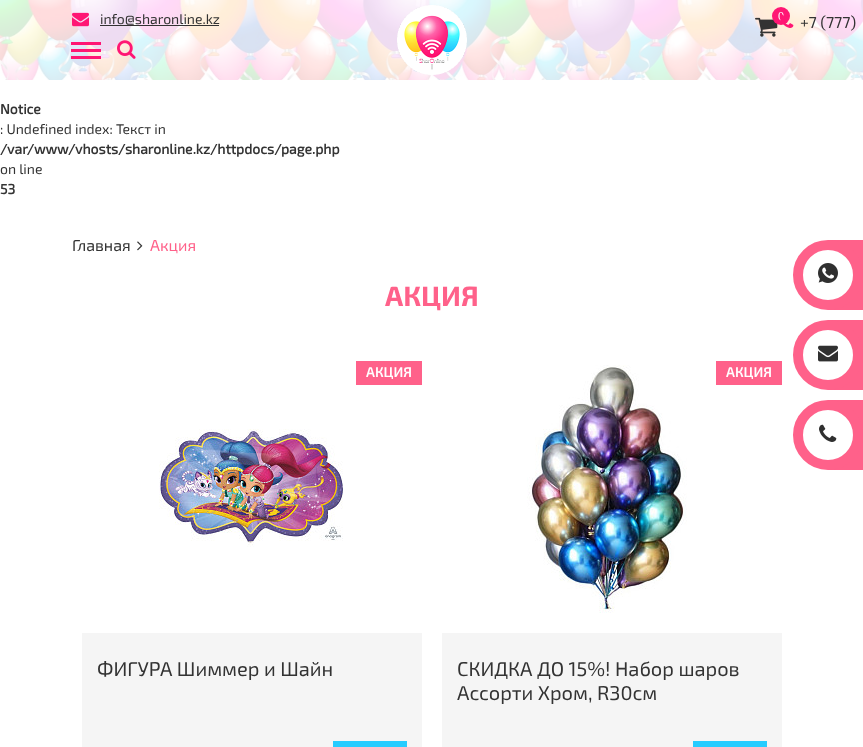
(async () => {
  const canvas = document.querySelector("canvas");
  canvas.width = 863;
  canvas.height = 747;
  const ctx = canvas.getContext("2d");
  ctx.miterLimit = 4;
  ctx.fontKerning = "normal";
  async function loadImage(src) {
    const img = new Image();
    img.src = src;
    await img.decode();
    return img;
  }

  ctx.fillStyle = "#ffffff";
  ctx.fillRect(0, 0, 863, 747);
  ctx.drawImage(await loadImage("img/1.png"), 0, 0, 863, 80);
  ctx.drawImage(await loadImage("img/2.png"), 72, 12, 17, 15);
  ctx.fillStyle = "#333333";
  ctx.fillRect(100, 25, 119, 1);
  ctx.drawImage(await loadImage("img/3.png"), 397, 5, 70, 70);
  ctx.drawImage(await loadImage("img/4.png"), 755, 17, 23, 20);
  ctx.fillStyle = "#ff1674";
  ctx.beginPath();
  ctx.arc(781, 16, 9, 0, Math.PI * 2);
  ctx.fill();
  for (const [x, y, w, h, color] of [
    [71, 42, 30, 3, "#ff1674"],
    [71, 49, 30, 3, "#ff1674"],
    [71, 56, 30, 3, "#ff1674"],
  ]) {
    ctx.fillStyle = color;
    ctx.fillRect(x, y, w, h);
  }
  ctx.drawImage(await loadImage("img/6.png"), 117, 40, 19, 19);
  ctx.drawImage(await loadImage("img/7.png"), 137, 241, 6, 10);
  ctx.fillStyle = "#f5f5f5";
  ctx.fillRect(82, 633, 340, 114);
  ctx.fillStyle = "#ff618a";
  ctx.fillRect(356, 361, 66, 24);
  ctx.drawImage(await loadImage("img/8.png"), 159, 429, 184, 118);
  ctx.fillStyle = "#26ccff";
  ctx.fillRect(333, 741, 74, 6);
  ctx.fillStyle = "#f5f5f5";
  ctx.fillRect(442, 633, 340, 114);
  ctx.drawImage(await loadImage("img/9.png"), 527, 365, 160, 248);
  for (const [x, y, w, h, color] of [
    [716, 361, 66, 24, "#ff618a"],
    [693, 741, 74, 6, "#26ccff"],
    [828, 240, 35, 70, "#ff618a"],
  ]) {
    ctx.fillStyle = color;
    ctx.fillRect(x, y, w, h);
  }
  ctx.fillStyle = "#ffffff";
  ctx.beginPath();
  ctx.arc(828, 275, 30, 0, Math.PI * 2);
  ctx.fill();
  ctx.strokeStyle = "#ff618a";
  ctx.lineWidth = 10;
  ctx.stroke();
  ctx.drawImage(await loadImage("img/10.png"), 818, 263, 20, 20);
  ctx.fillStyle = "#ff618a";
  ctx.fillRect(828, 320, 35, 70);
  ctx.fillStyle = "#ffffff";
  ctx.beginPath();
  ctx.arc(828, 355, 30, 0, Math.PI * 2);
  ctx.fill();
  ctx.stroke();
  ctx.drawImage(await loadImage("img/11.png"), 818, 345, 20, 17);
  ctx.fillStyle = "#ff618a";
  ctx.fillRect(828, 400, 35, 70);
  ctx.fillStyle = "#ffffff";
  ctx.beginPath();
  ctx.arc(828, 435, 30, 0, Math.PI * 2);
  ctx.fill();
  ctx.stroke();
  ctx.drawImage(await loadImage("img/12.png"), 819, 424, 18, 18);
  ctx.font = "14px 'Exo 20'";
  ctx.fillStyle = "#333333";
  ctx.fillText("info@sharonline.kz", 100, 24);
  ctx.font = "12px Liberation Serif";
  ctx.fillStyle = "#ffffff";
  ctx.fillText("0", 778, 20);
  ctx.drawImage(await loadImage("img/5.png"), 780, 14, 14, 14);
  ctx.font = "16px 'Exo 20'";
  ctx.fillStyle = "#333333";
  ctx.fillText("+7 (777)", 800, 28);
  ctx.font = "bold 14px 'Exo 20'";
  ctx.fillText("Notice", 0, 114);
  ctx.font = "14px 'Exo 20'";
  ctx.fillText(": Undefined index: Текст in", 0, 134);
  ctx.font = "bold 14px 'Exo 20'";
  ctx.fillText("/var/www/vhosts/sharonline.kz/httpdocs/page.php", 0, 154);
  ctx.font = "14px 'Exo 20'";
  ctx.fillText("on line", 0, 174);
  ctx.font = "bold 14px 'Exo 20'";
  ctx.fillText("53", 0, 194);
  ctx.font = "16px 'Exo 20'";
  ctx.fillText("Главная", 72, 251);
  ctx.fillStyle = "#ff618a";
  ctx.fillText("Акция", 150, 251);
  ctx.font = "bold 28px 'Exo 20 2'";
  ctx.fillText("АКЦИЯ", 385, 306);
  ctx.font = "600 14px 'Exo 20'";
  ctx.fillStyle = "#ffffff";
  ctx.fillText("АКЦИЯ", 366, 377);
  ctx.font = "20px 'Exo 20'";
  ctx.fillStyle = "#333333";
  ctx.fillText("ФИГУРА Шиммер и Шайн", 97, 676);
  ctx.font = "600 14px 'Exo 20'";
  ctx.fillStyle = "#ffffff";
  ctx.fillText("АКЦИЯ", 726, 377);
  ctx.font = "20px 'Exo 20'";
  ctx.fillStyle = "#333333";
  ctx.fillText("СКИДКА ДО 15%! Набор шаров", 457, 676);
  ctx.fillText("Ассорти Хром, R30см", 457, 700);
})();
